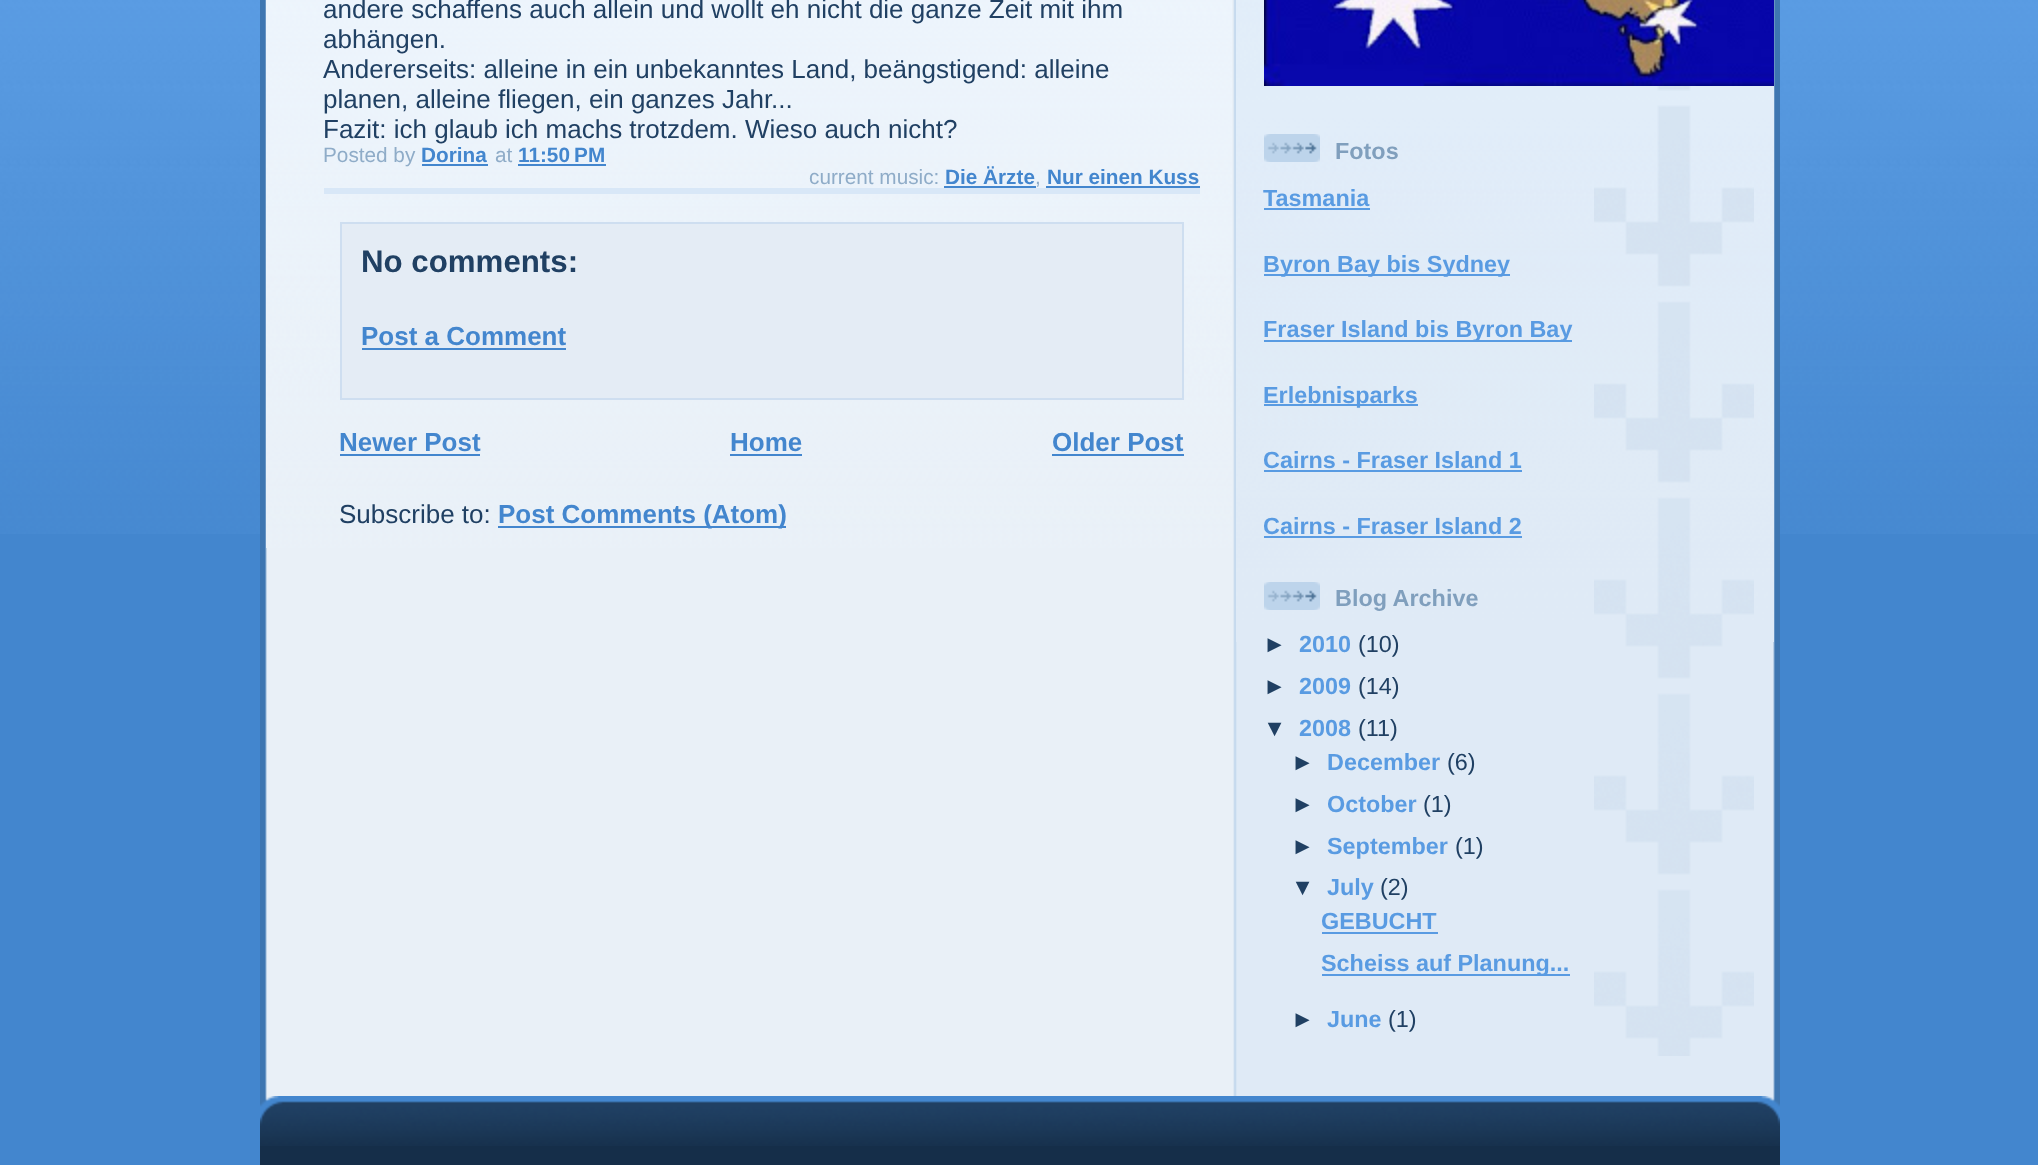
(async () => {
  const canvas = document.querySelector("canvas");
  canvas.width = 2038;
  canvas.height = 1165;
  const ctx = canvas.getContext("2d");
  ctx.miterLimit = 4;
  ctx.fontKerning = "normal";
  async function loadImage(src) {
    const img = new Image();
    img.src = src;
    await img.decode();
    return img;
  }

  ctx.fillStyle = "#4386ce";
  ctx.fillRect(0, 0, 2038, 1165);
  ctx.drawImage(await loadImage("img/1.png"), 0, 0, 2038, 534);
  ctx.drawImage(await loadImage("img/2.png"), 260, 0, 1520, 1096);
  ctx.drawImage(await loadImage("img/3.png"), 266, 0, 966, 548);
  for (const [x, y, w, h, color] of [
    [324, 188, 876, 6, "#d8e7f7"],
    [422, 164, 66, 2, "#4386ce"],
    [518, 164, 88, 2, "#4386ce"],
    [944, 186, 92, 2, "#4386ce"],
    [1046, 186, 154, 2, "#4386ce"],
  ]) {
    ctx.fillStyle = color;
    ctx.fillRect(x, y, w, h);
  }
  ctx.fillStyle = "#e4ecf5";
  ctx.beginPath();
  ctx.rect(341, 223, 842, 176);
  ctx.fill();
  ctx.strokeStyle = "#cedef0";
  ctx.lineWidth = 2;
  ctx.stroke();
  for (const [x, y, w, h, color] of [
    [362, 348, 204, 2, "#4386ce"],
    [340, 454, 140, 2, "#4386ce"],
    [730, 454, 72, 2, "#4386ce"],
    [1052, 454, 132, 2, "#4386ce"],
    [498, 526, 288, 2, "#4386ce"],
  ]) {
    ctx.fillStyle = color;
    ctx.fillRect(x, y, w, h);
  }
  ctx.drawImage(await loadImage("img/4.png"), 1236, 0, 538, 642);
  ctx.drawImage(await loadImage("img/5.png"), 1594, 86, 160, 970);
  ctx.drawImage(await loadImage("img/6.png"), 1264, 0, 510, 86);
  ctx.drawImage(await loadImage("img/7.png"), 1264, 134, 56, 28);
  for (const [x, y, w, h, color] of [
    [1264, 208, 106, 2, "#599be2"],
    [1264, 274, 246, 2, "#599be2"],
    [1264, 340, 308, 2, "#599be2"],
    [1264, 404, 154, 2, "#599be2"],
    [1264, 470, 258, 2, "#599be2"],
    [1264, 536, 258, 2, "#599be2"],
  ]) {
    ctx.fillStyle = color;
    ctx.fillRect(x, y, w, h);
  }
  ctx.drawImage(await loadImage("img/8.png"), 1264, 582, 56, 28);
  ctx.fillRect(1322, 932, 116, 2);
  ctx.fillRect(1322, 974, 248, 2);
  ctx.drawImage(await loadImage("img/9.png"), 260, 1096, 1520, 30);
  ctx.fillStyle = "#152e49";
  ctx.fillRect(260, 1146, 1520, 19);
  ctx.drawImage(await loadImage("img/10.png"), 260, 1126, 1520, 20);
  ctx.font = "26px Liberation Sans";
  ctx.fillStyle = "#204063";
  for (const [text, x, y] of [
    ["andere schaffens auch allein und wollt eh nicht die ganze Zeit mit ihm", 323, 18],
    ["abhängen.", 323, 48],
    ["Andererseits: alleine in ein unbekanntes Land, beängstigend: alleine", 323, 78],
    ["planen, alleine fliegen, ein ganzes Jahr...", 323, 108],
    ["Fazit: ich glaub ich machs trotzdem. Wieso auch nicht?", 323, 138],
  ]) {
    ctx.fillText(text, x, y);
  }
  ctx.font = "20.75px Liberation Sans";
  ctx.fillStyle = "#8facc8";
  ctx.fillText("Posted by", 323, 162);
  ctx.font = "bold 20.75px Liberation Sans";
  ctx.fillStyle = "#4386ce";
  ctx.fillText("Dorina", 421, 162);
  ctx.font = "20.75px Liberation Sans";
  ctx.fillStyle = "#8facc8";
  ctx.fillText("at", 495, 162);
  ctx.font = "bold 20.75px Liberation Sans";
  ctx.fillStyle = "#4386ce";
  ctx.fillText("11:50 PM", 518, 162);
  ctx.font = "20.75px Liberation Sans";
  ctx.fillStyle = "#8facc8";
  ctx.fillText("current music:", 809, 184);
  ctx.font = "bold 20.75px Liberation Sans";
  ctx.fillStyle = "#4386ce";
  ctx.fillText("Die Ärzte", 945, 184);
  ctx.font = "20.75px Liberation Sans";
  ctx.fillStyle = "#8facc8";
  ctx.fillText(",", 1035, 184);
  ctx.font = "bold 20.75px Liberation Sans";
  ctx.fillStyle = "#4386ce";
  ctx.fillText("Nur einen Kuss", 1047, 184);
  ctx.font = "bold 31.25px Liberation Sans";
  ctx.fillStyle = "#204063";
  ctx.fillText("No comments:", 361, 272);
  ctx.font = "bold 26px Liberation Sans";
  ctx.fillStyle = "#4386ce";
  for (const [text, x, y] of [
    ["Post a Comment", 361, 345],
    ["Newer Post", 339, 451],
    ["Home", 730, 451],
    ["Older Post", 1052, 451],
  ]) {
    ctx.fillText(text, x, y);
  }
  ctx.font = "26px Liberation Sans";
  ctx.fillStyle = "#204063";
  ctx.fillText("Subscribe to:", 339, 523);
  ctx.font = "bold 26px Liberation Sans";
  ctx.fillStyle = "#4386ce";
  ctx.fillText("Post Comments (Atom)", 498, 523);
  ctx.font = "bold 23.4px Liberation Sans";
  ctx.fillStyle = "#809fbd";
  ctx.fillText("Fotos", 1335, 159);
  ctx.fillStyle = "#599be2";
  for (const [text, x, y] of [
    ["Tasmania", 1263, 206],
    ["Byron Bay bis Sydney", 1263, 272],
    ["Fraser Island bis Byron Bay", 1263, 337],
    ["Erlebnisparks", 1263, 403],
    ["Cairns - Fraser Island 1", 1263, 468],
    ["Cairns - Fraser Island 2", 1263, 534],
  ]) {
    ctx.fillText(text, x, y);
  }
  ctx.fillStyle = "#809fbd";
  ctx.fillText("Blog Archive", 1335, 606);
  ctx.fillStyle = "#204063";
  ctx.fillText("►", 1263, 652);
  ctx.fillStyle = "#599be2";
  ctx.fillText("2010", 1299, 652);
  ctx.font = "23.4px Liberation Sans";
  ctx.fillStyle = "#204063";
  ctx.fillText("(10)", 1358, 652);
  ctx.font = "bold 23.4px Liberation Sans";
  ctx.fillText("►", 1263, 694);
  ctx.fillStyle = "#599be2";
  ctx.fillText("2009", 1299, 694);
  ctx.font = "23.4px Liberation Sans";
  ctx.fillStyle = "#204063";
  ctx.fillText("(14)", 1358, 694);
  ctx.font = "bold 23.4px Liberation Sans";
  ctx.fillText("▼", 1263, 736);
  ctx.fillStyle = "#599be2";
  ctx.fillText("2008", 1299, 736);
  ctx.font = "23.4px Liberation Sans";
  ctx.fillStyle = "#204063";
  ctx.fillText("(11)", 1358, 736);
  ctx.font = "bold 23.4px Liberation Sans";
  ctx.fillText("►", 1291, 770);
  ctx.fillStyle = "#599be2";
  ctx.fillText("December", 1327, 770);
  ctx.font = "23.4px Liberation Sans";
  ctx.fillStyle = "#204063";
  ctx.fillText("(6)", 1447, 770);
  ctx.font = "bold 23.4px Liberation Sans";
  ctx.fillText("►", 1291, 812);
  ctx.fillStyle = "#599be2";
  ctx.fillText("October", 1327, 812);
  ctx.font = "23.4px Liberation Sans";
  ctx.fillStyle = "#204063";
  ctx.fillText("(1)", 1423, 812);
  ctx.font = "bold 23.4px Liberation Sans";
  ctx.fillText("►", 1291, 854);
  ctx.fillStyle = "#599be2";
  ctx.fillText("September", 1327, 854);
  ctx.font = "23.4px Liberation Sans";
  ctx.fillStyle = "#204063";
  ctx.fillText("(1)", 1455, 854);
  ctx.font = "bold 23.4px Liberation Sans";
  ctx.fillText("▼", 1291, 895);
  ctx.fillStyle = "#599be2";
  ctx.fillText("July", 1327, 895);
  ctx.font = "23.4px Liberation Sans";
  ctx.fillStyle = "#204063";
  ctx.fillText("(2)", 1380, 895);
  ctx.font = "bold 23.4px Liberation Sans";
  ctx.fillStyle = "#599be2";
  ctx.fillText("GEBUCHT", 1321, 929);
  ctx.fillText("Scheiss auf Planung...", 1321, 971);
  ctx.fillStyle = "#204063";
  ctx.fillText("►", 1291, 1027);
  ctx.fillStyle = "#599be2";
  ctx.fillText("June", 1327, 1027);
  ctx.font = "23.4px Liberation Sans";
  ctx.fillStyle = "#204063";
  ctx.fillText("(1)", 1388, 1027);
})();
